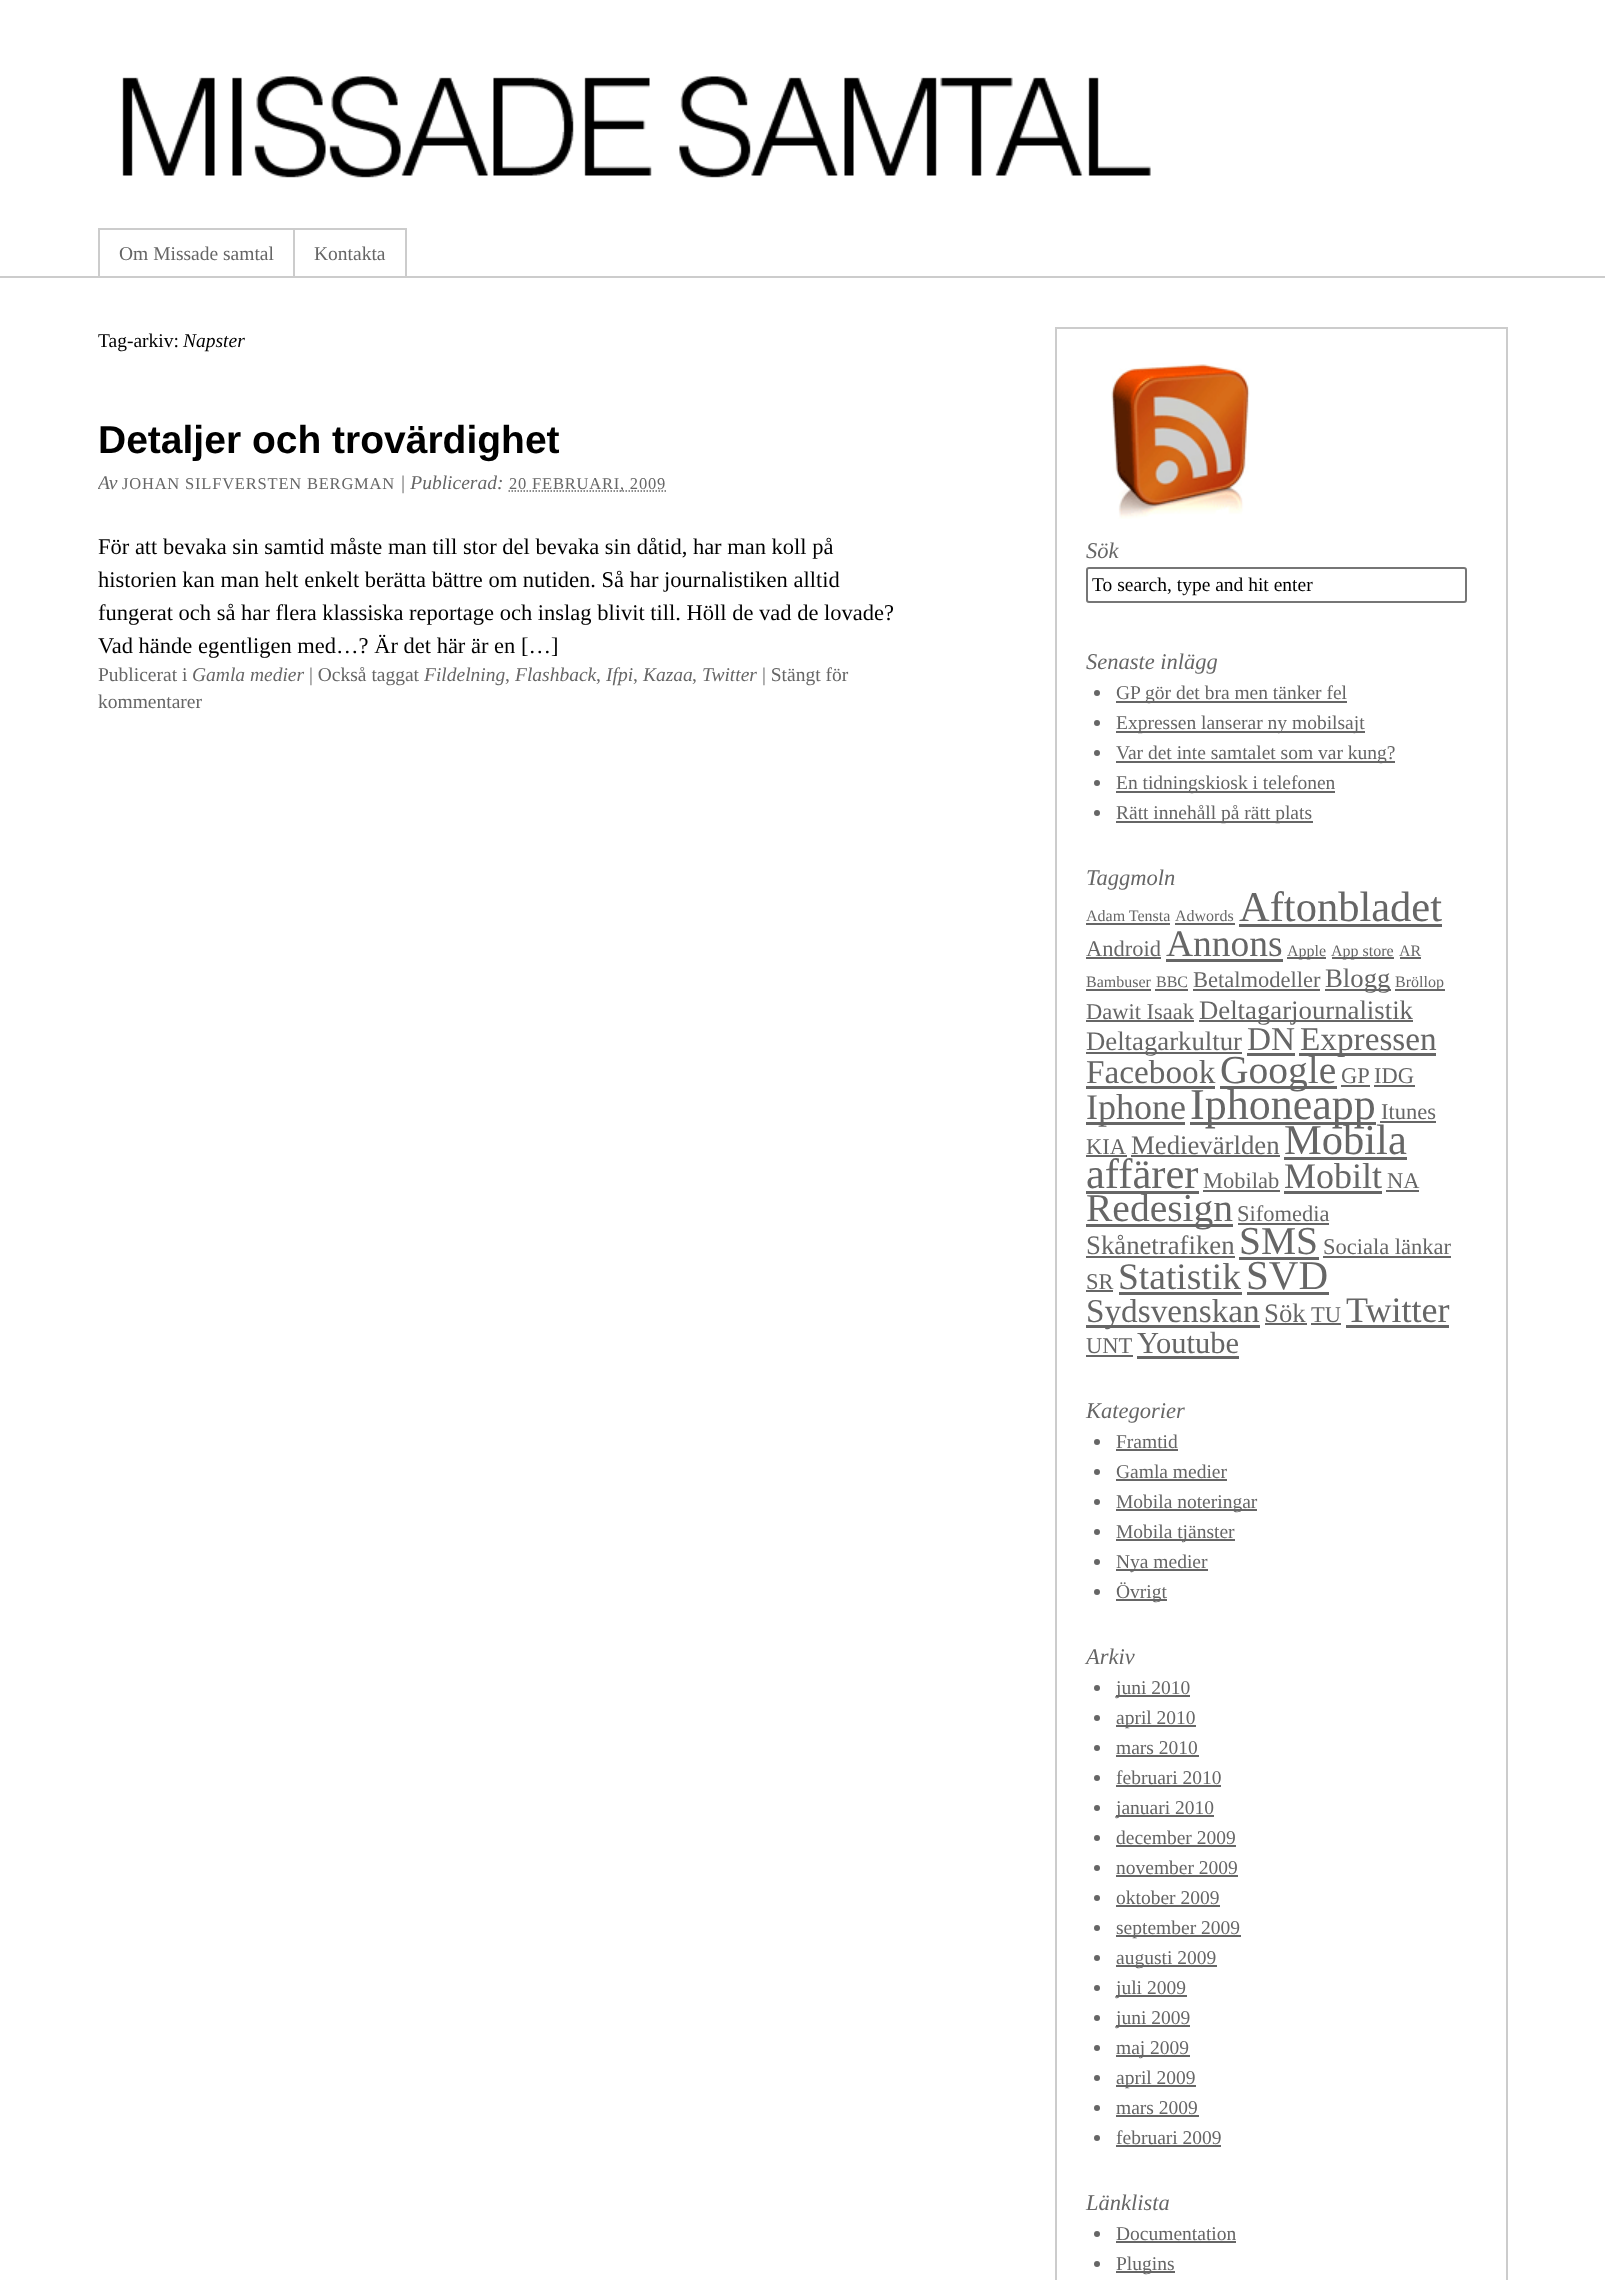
(async () => {
  const canvas = document.querySelector("canvas");
  canvas.width = 1605;
  canvas.height = 2280;
  const ctx = canvas.getContext("2d");
  ctx.miterLimit = 4;
  ctx.fontKerning = "normal";
  async function loadImage(src) {
    const img = new Image();
    img.src = src;
    await img.decode();
    return img;
  }
  let path;

  ctx.fillStyle = "#ffffff";
  ctx.fillRect(0, 0, 1605, 2280);
  ctx.drawImage(await loadImage("img/1.png"), 122, 76, 1029, 102);
  for (const [x, y, w, h, color] of [
    [0, 276, 1605, 2, "#cccccc"],
    [405, 228, 2, 50, "#cccccc"],
    [98, 228, 307, 2, "#cccccc"],
    [98, 228, 2, 50, "#cccccc"],
    [293, 228, 2, 50, "#cccccc"],
  ]) {
    ctx.fillStyle = color;
    ctx.fillRect(x, y, w, h);
  }
  path = new Path2D("M508.5 491H666");
  ctx.strokeStyle = "#666666";
  ctx.lineWidth = 1.5;
  ctx.setLineDash([1.5, 1.5]);
  ctx.stroke(path);
  ctx.strokeStyle = "#cccccc";
  ctx.lineWidth = 2;
  ctx.setLineDash([]);
  ctx.strokeRect(1056, 328, 451, 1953);
  ctx.drawImage(await loadImage("img/2.png"), 1111, 363, 139, 156);
  ctx.beginPath();
  ctx.roundRect(1087, 568, 379, 34, 2);
  ctx.strokeStyle = "#767676";
  ctx.stroke();
  ctx.fillStyle = "#666666";
  ctx.beginPath();
  ctx.arc(1097, 693, 3, 0, Math.PI * 2);
  ctx.fill();
  ctx.fillRect(1116, 701, 231, 2);
  ctx.beginPath();
  ctx.arc(1097, 723, 3, 0, Math.PI * 2);
  ctx.fill();
  ctx.fillRect(1116, 731, 249, 2);
  ctx.beginPath();
  ctx.arc(1097, 753, 3, 0, Math.PI * 2);
  ctx.fill();
  ctx.fillRect(1116, 761, 279, 2);
  ctx.beginPath();
  ctx.arc(1097, 783, 3, 0, Math.PI * 2);
  ctx.fill();
  ctx.fillRect(1116, 791, 219, 2);
  ctx.beginPath();
  ctx.arc(1097, 813, 3, 0, Math.PI * 2);
  ctx.fill();
  for (const [x, y, w, h, color] of [
    [1116, 821, 197, 2, "#666666"],
    [1086, 923, 84, 2, "#666666"],
    [1175, 923, 60, 2, "#666666"],
    [1239, 924, 203, 3, "#666666"],
    [1086, 957, 75, 2, "#666666"],
    [1166, 959, 117, 3, "#666666"],
    [1287, 957, 39, 2, "#666666"],
    [1332, 957, 62, 2, "#666666"],
    [1400, 957, 21, 2, "#666666"],
    [1086, 989, 65, 2, "#666666"],
    [1155, 989, 33, 2, "#666666"],
    [1193, 989, 127, 2, "#666666"],
    [1325, 989, 66, 2, "#666666"],
    [1395, 989, 50, 2, "#666666"],
    [1086, 1020, 108, 2, "#666666"],
    [1199, 1020, 214, 2, "#666666"],
    [1086, 1052, 156, 2, "#666666"],
    [1247, 1053, 48, 3, "#666666"],
    [1299, 1053, 137, 3, "#666666"],
    [1086, 1086, 129, 3, "#666666"],
    [1220, 1086, 117, 3, "#666666"],
    [1341, 1085, 29, 2, "#666666"],
    [1374, 1085, 41, 2, "#666666"],
    [1086, 1122, 99, 3, "#666666"],
    [1190, 1122, 186, 3, "#666666"],
    [1380, 1121, 56, 2, "#666666"],
    [1086, 1155, 41, 2, "#666666"],
    [1131, 1155, 149, 2, "#666666"],
    [1284, 1157, 123, 3, "#666666"],
    [1086, 1191, 113, 3, "#666666"],
    [1203, 1190, 77, 2, "#666666"],
    [1284, 1191, 98, 3, "#666666"],
    [1386, 1190, 33, 2, "#666666"],
    [1086, 1224, 147, 3, "#666666"],
    [1238, 1223, 91, 2, "#666666"],
    [1086, 1256, 149, 2, "#666666"],
    [1239, 1257, 80, 3, "#666666"],
    [1323, 1256, 128, 2, "#666666"],
    [1086, 1290, 27, 2, "#666666"],
    [1119, 1292, 123, 3, "#666666"],
    [1247, 1292, 82, 3, "#666666"],
    [1086, 1325, 174, 3, "#666666"],
    [1265, 1323, 42, 2, "#666666"],
    [1311, 1323, 30, 2, "#666666"],
    [1346, 1325, 103, 3, "#666666"],
    [1086, 1355, 47, 2, "#666666"],
    [1137, 1356, 102, 3, "#666666"],
  ]) {
    ctx.fillStyle = color;
    ctx.fillRect(x, y, w, h);
  }
  ctx.beginPath();
  ctx.arc(1097, 1442, 3, 0, Math.PI * 2);
  ctx.fill();
  ctx.fillRect(1116, 1449, 62, 2);
  ctx.beginPath();
  ctx.arc(1097, 1472, 3, 0, Math.PI * 2);
  ctx.fill();
  ctx.fillRect(1116, 1479, 111, 2);
  ctx.beginPath();
  ctx.arc(1097, 1502, 3, 0, Math.PI * 2);
  ctx.fill();
  ctx.fillRect(1116, 1509, 141, 2);
  ctx.beginPath();
  ctx.arc(1097, 1532, 3, 0, Math.PI * 2);
  ctx.fill();
  ctx.fillRect(1116, 1539, 119, 2);
  ctx.beginPath();
  ctx.arc(1097, 1562, 3, 0, Math.PI * 2);
  ctx.fill();
  ctx.fillRect(1116, 1569, 92, 2);
  ctx.beginPath();
  ctx.arc(1097, 1592, 3, 0, Math.PI * 2);
  ctx.fill();
  ctx.fillRect(1116, 1599, 51, 2);
  ctx.beginPath();
  ctx.arc(1097, 1688, 3, 0, Math.PI * 2);
  ctx.fill();
  ctx.fillRect(1116, 1695, 74, 2);
  ctx.beginPath();
  ctx.arc(1097, 1718, 3, 0, Math.PI * 2);
  ctx.fill();
  ctx.fillRect(1116, 1725, 80, 2);
  ctx.beginPath();
  ctx.arc(1097, 1748, 3, 0, Math.PI * 2);
  ctx.fill();
  ctx.fillRect(1116, 1755, 83, 2);
  ctx.beginPath();
  ctx.arc(1097, 1778, 3, 0, Math.PI * 2);
  ctx.fill();
  ctx.fillRect(1116, 1785, 105, 2);
  ctx.beginPath();
  ctx.arc(1097, 1808, 3, 0, Math.PI * 2);
  ctx.fill();
  ctx.fillRect(1116, 1815, 98, 2);
  ctx.beginPath();
  ctx.arc(1097, 1838, 3, 0, Math.PI * 2);
  ctx.fill();
  ctx.fillRect(1116, 1845, 120, 2);
  ctx.beginPath();
  ctx.arc(1097, 1868, 3, 0, Math.PI * 2);
  ctx.fill();
  ctx.fillRect(1116, 1875, 122, 2);
  ctx.beginPath();
  ctx.arc(1097, 1898, 3, 0, Math.PI * 2);
  ctx.fill();
  ctx.fillRect(1116, 1905, 104, 2);
  ctx.beginPath();
  ctx.arc(1097, 1928, 3, 0, Math.PI * 2);
  ctx.fill();
  ctx.fillRect(1116, 1935, 125, 2);
  ctx.beginPath();
  ctx.arc(1097, 1958, 3, 0, Math.PI * 2);
  ctx.fill();
  ctx.fillRect(1116, 1965, 101, 2);
  ctx.beginPath();
  ctx.arc(1097, 1988, 3, 0, Math.PI * 2);
  ctx.fill();
  ctx.fillRect(1116, 1995, 71, 2);
  ctx.beginPath();
  ctx.arc(1097, 2018, 3, 0, Math.PI * 2);
  ctx.fill();
  ctx.fillRect(1116, 2025, 74, 2);
  ctx.beginPath();
  ctx.arc(1097, 2048, 3, 0, Math.PI * 2);
  ctx.fill();
  ctx.fillRect(1116, 2055, 74, 2);
  ctx.beginPath();
  ctx.arc(1097, 2078, 3, 0, Math.PI * 2);
  ctx.fill();
  ctx.fillRect(1116, 2085, 80, 2);
  ctx.beginPath();
  ctx.arc(1097, 2108, 3, 0, Math.PI * 2);
  ctx.fill();
  ctx.fillRect(1116, 2115, 83, 2);
  ctx.beginPath();
  ctx.arc(1097, 2138, 3, 0, Math.PI * 2);
  ctx.fill();
  ctx.fillRect(1116, 2145, 105, 2);
  ctx.beginPath();
  ctx.arc(1097, 2234, 3, 0, Math.PI * 2);
  ctx.fill();
  ctx.fillRect(1116, 2241, 120, 2);
  ctx.beginPath();
  ctx.arc(1097, 2264, 3, 0, Math.PI * 2);
  ctx.fill();
  ctx.fillRect(1116, 2271, 59, 2);
  ctx.font = "19.5px Liberation Serif";
  ctx.fillText("Om Missade samtal", 119, 260);
  ctx.fillText("Kontakta", 314, 260);
  ctx.save();
  ctx.beginPath();
  ctx.rect(98, 327, 810, 521);
  ctx.clip();
  ctx.fillStyle = "#000000";
  ctx.fillText("Tag-arkiv:", 98, 347);
  ctx.restore();
  ctx.font = "italic 19.5px Liberation Serif";
  ctx.fillStyle = "#000000";
  ctx.fillText("Napster", 183, 347);
  ctx.font = "bold 39px Liberation Sans";
  ctx.fillText("Detaljer och trovärdighet", 98, 453);
  ctx.save();
  ctx.beginPath();
  ctx.rect(98, 327, 810, 521);
  ctx.clip();
  ctx.font = "italic 19.5px Liberation Serif";
  ctx.fillStyle = "#666666";
  ctx.fillText("Av", 98, 489);
  ctx.restore();
  ctx.letterSpacing = "0.8px";
  ctx.font = "16.5px Liberation Serif";
  ctx.fillStyle = "#666666";
  ctx.fillText("JOHAN SILFVERSTEN BERGMAN", 122, 489);
  ctx.letterSpacing = "0px";
  ctx.font = "italic 19.5px Liberation Serif";
  ctx.fillText("| Publicerad:", 400, 489);
  ctx.letterSpacing = "0.8px";
  ctx.font = "16.5px Liberation Serif";
  ctx.fillText("20 FEBRUARI, 2009", 509, 489);
  ctx.letterSpacing = "0px";
  ctx.font = "22.5px Liberation Serif";
  ctx.fillStyle = "#000000";
  for (const [text, x, y] of [
    ["För att bevaka sin samtid måste man till stor del bevaka sin dåtid, har man koll på", 98, 554],
    ["historien kan man helt enkelt berätta bättre om nutiden. Så har journalistiken alltid", 98, 587],
    ["fungerat och så har flera klassiska reportage och inslag blivit till. Höll de vad de lovade?", 98, 620],
    ["Vad hände egentligen med…? Är det här är en […]", 98, 653],
  ]) {
    ctx.fillText(text, x, y);
  }
  ctx.font = "19.5px Liberation Serif";
  ctx.fillStyle = "#666666";
  ctx.fillText("Publicerat i", 98, 681);
  ctx.font = "italic 19.5px Liberation Serif";
  ctx.fillText("Gamla medier", 192, 681);
  ctx.font = "19.5px Liberation Serif";
  ctx.fillText("| Också taggat", 309, 681);
  ctx.font = "italic 19.5px Liberation Serif";
  ctx.fillText("Fildelning", 424, 681);
  ctx.font = "19.5px Liberation Serif";
  ctx.fillText(",", 505, 681);
  ctx.font = "italic 19.5px Liberation Serif";
  ctx.fillText("Flashback", 515, 681);
  ctx.font = "19.5px Liberation Serif";
  ctx.fillText(",", 596, 681);
  ctx.font = "italic 19.5px Liberation Serif";
  ctx.fillText("Ifpi", 606, 681);
  ctx.font = "19.5px Liberation Serif";
  ctx.fillText(",", 633, 681);
  ctx.font = "italic 19.5px Liberation Serif";
  ctx.fillText("Kazaa", 643, 681);
  ctx.font = "19.5px Liberation Serif";
  ctx.fillText(",", 692, 681);
  ctx.font = "italic 19.5px Liberation Serif";
  ctx.fillText("Twitter", 702, 681);
  ctx.font = "19.5px Liberation Serif";
  ctx.fillText("| Stängt för", 762, 681);
  ctx.fillText("kommentarer", 98, 708);
  ctx.font = "italic 22.5px Liberation Serif";
  ctx.fillText("Sök", 1086, 558);
  ctx.font = "19.5px Liberation Serif";
  ctx.fillStyle = "#000000";
  ctx.fillText("To search, type and hit enter", 1092, 591);
  ctx.font = "italic 22.5px Liberation Serif";
  ctx.fillStyle = "#666666";
  ctx.fillText("Senaste inlägg", 1086, 669);
  ctx.font = "19.5px Liberation Serif";
  for (const [text, x, y] of [
    ["GP gör det bra men tänker fel", 1116, 699],
    ["Expressen lanserar ny mobilsajt", 1116, 729],
    ["Var det inte samtalet som var kung?", 1116, 759],
    ["En tidningskiosk i telefonen", 1116, 789],
    ["Rätt innehåll på rätt plats", 1116, 819],
  ]) {
    ctx.fillText(text, x, y);
  }
  ctx.font = "italic 22.5px Liberation Serif";
  ctx.fillText("Taggmoln", 1086, 885);
  ctx.font = "16px Liberation Serif";
  ctx.fillText("Adam Tensta", 1086, 921);
  ctx.fillText("Adwords", 1175, 921);
  ctx.font = "42.5px Liberation Serif";
  ctx.fillText("Aftonbladet", 1239, 921);
  ctx.font = "22.5px Liberation Serif";
  ctx.fillText("Android", 1086, 956);
  ctx.font = "37.5px Liberation Serif";
  ctx.fillText("Annons", 1166, 956);
  ctx.font = "16px Liberation Serif";
  for (const [text, x, y] of [
    ["Apple", 1287, 956],
    ["App store", 1331, 956],
    ["AR", 1399, 956],
    ["Bambuser", 1086, 987],
    ["BBC", 1156, 987],
  ]) {
    ctx.fillText(text, x, y);
  }
  ctx.font = "22.5px Liberation Serif";
  ctx.fillText("Betalmodeller", 1193, 987);
  ctx.font = "26.75px Liberation Serif";
  ctx.fillText("Blogg", 1325, 987);
  ctx.font = "16px Liberation Serif";
  ctx.fillText("Bröllop", 1395, 987);
  ctx.font = "22.5px Liberation Serif";
  ctx.fillText("Dawit Isaak", 1086, 1019);
  ctx.font = "26.75px Liberation Serif";
  ctx.fillText("Deltagarjournalistik", 1199, 1019);
  ctx.fillText("Deltagarkultur", 1086, 1050);
  ctx.font = "33.25px Liberation Serif";
  for (const [text, x, y] of [
    ["DN", 1247, 1050],
    ["Expressen", 1300, 1050],
    ["Facebook", 1086, 1083],
  ]) {
    ctx.fillText(text, x, y);
  }
  ctx.font = "39.5px Liberation Serif";
  ctx.fillText("Google", 1220, 1083);
  ctx.font = "22.5px Liberation Serif";
  ctx.fillText("GP", 1341, 1083);
  ctx.fillText("IDG", 1374, 1083);
  ctx.font = "36px Liberation Serif";
  ctx.fillText("Iphone", 1086, 1119);
  ctx.font = "44px Liberation Serif";
  ctx.fillText("Iphoneapp", 1190, 1119);
  ctx.font = "22.5px Liberation Serif";
  ctx.fillText("Itunes", 1381, 1119);
  ctx.fillText("KIA", 1086, 1154);
  ctx.font = "26.75px Liberation Serif";
  ctx.fillText("Medievärlden", 1131, 1154);
  ctx.font = "42.5px Liberation Serif";
  ctx.fillText("Mobila", 1284, 1154);
  ctx.fillText("affärer", 1086, 1188);
  ctx.font = "22.5px Liberation Serif";
  ctx.fillText("Mobilab", 1203, 1188);
  ctx.font = "36px Liberation Serif";
  ctx.fillText("Mobilt", 1284, 1188);
  ctx.font = "22.5px Liberation Serif";
  ctx.fillText("NA", 1387, 1188);
  ctx.font = "39.5px Liberation Serif";
  ctx.fillText("Redesign", 1086, 1221);
  ctx.font = "22.5px Liberation Serif";
  ctx.fillText("Sifomedia", 1237, 1221);
  ctx.font = "26.75px Liberation Serif";
  ctx.fillText("Skånetrafiken", 1086, 1254);
  ctx.font = "39.5px Liberation Serif";
  ctx.fillText("SMS", 1239, 1254);
  ctx.font = "22.5px Liberation Serif";
  ctx.fillText("Sociala länkar", 1323, 1254);
  ctx.fillText("SR", 1086, 1289);
  ctx.font = "37.5px Liberation Serif";
  ctx.fillText("Statistik", 1118, 1289);
  ctx.font = "41px Liberation Serif";
  ctx.fillText("SVD", 1246, 1289);
  ctx.font = "33.25px Liberation Serif";
  ctx.fillText("Sydsvenskan", 1086, 1322);
  ctx.font = "26.75px Liberation Serif";
  ctx.fillText("Sök", 1264, 1322);
  ctx.font = "22.5px Liberation Serif";
  ctx.fillText("TU", 1311, 1322);
  ctx.font = "36px Liberation Serif";
  ctx.fillText("Twitter", 1346, 1322);
  ctx.font = "22.5px Liberation Serif";
  ctx.fillText("UNT", 1086, 1353);
  ctx.font = "30.5px Liberation Serif";
  ctx.fillText("Youtube", 1137, 1353);
  ctx.font = "italic 22.5px Liberation Serif";
  ctx.fillText("Kategorier", 1086, 1418);
  ctx.font = "19.5px Liberation Serif";
  for (const [text, x, y] of [
    ["Framtid", 1116, 1448],
    ["Gamla medier", 1116, 1478],
    ["Mobila noteringar", 1116, 1508],
    ["Mobila tjänster", 1116, 1538],
    ["Nya medier", 1116, 1568],
    ["Övrigt", 1116, 1598],
  ]) {
    ctx.fillText(text, x, y);
  }
  ctx.font = "italic 22.5px Liberation Serif";
  ctx.fillText("Arkiv", 1086, 1664);
  ctx.font = "19.5px Liberation Serif";
  for (const [text, x, y] of [
    ["juni 2010", 1116, 1694],
    ["april 2010", 1116, 1724],
    ["mars 2010", 1116, 1754],
    ["februari 2010", 1116, 1784],
    ["januari 2010", 1116, 1814],
    ["december 2009", 1116, 1844],
    ["november 2009", 1116, 1874],
    ["oktober 2009", 1116, 1904],
    ["september 2009", 1116, 1934],
    ["augusti 2009", 1116, 1964],
    ["juli 2009", 1116, 1994],
    ["juni 2009", 1116, 2024],
    ["maj 2009", 1116, 2054],
    ["april 2009", 1116, 2084],
    ["mars 2009", 1116, 2114],
    ["februari 2009", 1116, 2144],
  ]) {
    ctx.fillText(text, x, y);
  }
  ctx.font = "italic 22.5px Liberation Serif";
  ctx.fillText("Länklista", 1086, 2210);
  ctx.font = "19.5px Liberation Serif";
  ctx.fillText("Documentation", 1116, 2240);
  ctx.fillText("Plugins", 1116, 2270);
})();
